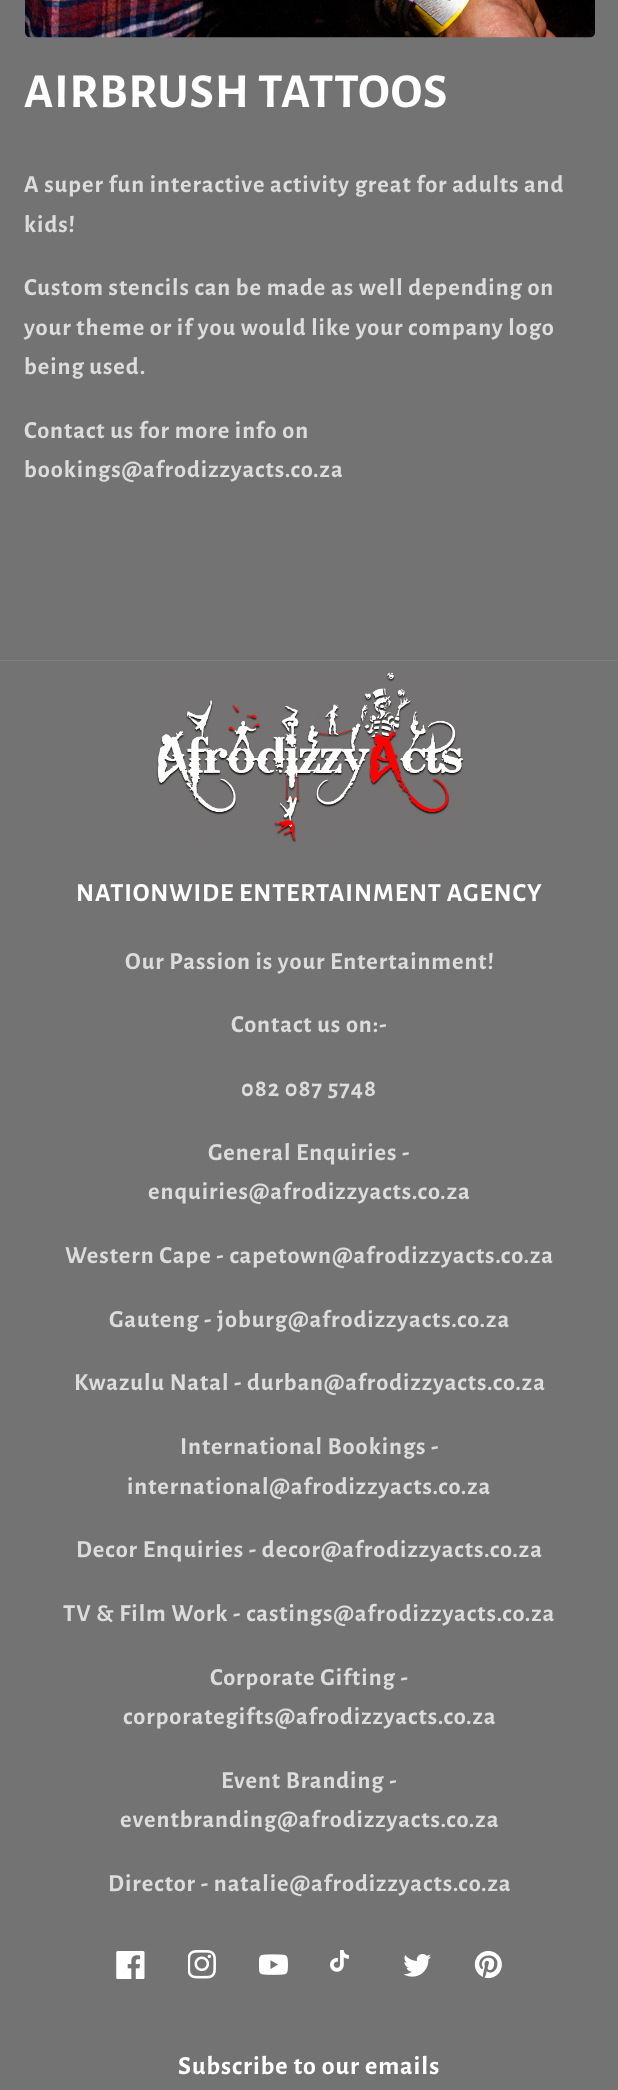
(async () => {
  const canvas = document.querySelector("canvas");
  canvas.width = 618;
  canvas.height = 2090;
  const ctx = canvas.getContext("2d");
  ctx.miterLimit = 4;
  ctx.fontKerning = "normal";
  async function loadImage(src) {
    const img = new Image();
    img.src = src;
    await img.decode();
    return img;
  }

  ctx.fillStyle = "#747373";
  ctx.fillRect(0, 0, 618, 2090);
  ctx.drawImage(await loadImage("img/1.png"), 25, 0, 570, 38);
  ctx.fillStyle = "#7f7e7e";
  ctx.fillRect(0, 660, 618, 1);
  ctx.drawImage(await loadImage("img/2.png"), 156, 672, 308, 171);
  ctx.drawImage(await loadImage("img/3.png"), 116, 1951, 29, 28);
  ctx.drawImage(await loadImage("img/4.png"), 188, 1950, 28, 29);
  ctx.drawImage(await loadImage("img/5.png"), 259, 1954, 29, 21);
  ctx.drawImage(await loadImage("img/6.png"), 330, 1950, 19, 22);
  ctx.drawImage(await loadImage("img/7.png"), 403, 1954, 28, 23);
  ctx.drawImage(await loadImage("img/8.png"), 474, 1950, 28, 29);
  ctx.letterSpacing = "0.98px";
  ctx.font = "bold 48.75px Alegreya Sans";
  ctx.fillStyle = "#ffffff";
  ctx.fillText("AIRBRUSH TATTOOS", 24, 107);
  ctx.font = "bold 24.4px Alegreya Sans";
  ctx.fillStyle = "#dcdcdc";
  for (const [text, x, y] of [
    ["A super fun interactive activity great for adults and", 24, 192],
    ["kids!", 24, 232],
    ["Custom stencils can be made as well depending on", 24, 295],
    ["your theme or if you would like your company logo", 24, 335],
    ["being used.", 24, 374],
    ["Contact us for more info on", 24, 438],
    ["bookings@afrodizzyacts.co.za", 24, 477],
  ]) {
    ctx.fillText(text, x, y);
  }
  ctx.font = "bold 26px Alegreya Sans";
  ctx.fillStyle = "#ffffff";
  ctx.fillText("NATIONWIDE ENTERTAINMENT AGENCY", 76, 901);
  ctx.font = "bold 24.4px Alegreya Sans";
  ctx.fillStyle = "#dcdcdc";
  for (const [text, x, y] of [
    ["Our Passion is your Entertainment!", 125, 969],
    ["Contact us on:-", 231, 1032],
    ["082 087 5748", 241, 1096],
    ["General Enquiries -", 208, 1160],
    ["enquiries@afrodizzyacts.co.za", 148, 1199],
    ["Western Cape - capetown@afrodizzyacts.co.za", 65, 1263],
    ["Gauteng - joburg@afrodizzyacts.co.za", 109, 1327],
    ["Kwazulu Natal - durban@afrodizzyacts.co.za", 74, 1390],
    ["International Bookings -", 180, 1454],
    ["international@afrodizzyacts.co.za", 127, 1494],
    ["Decor Enquiries - decor@afrodizzyacts.co.za", 76, 1557],
    ["TV & Film Work - castings@afrodizzyacts.co.za", 63, 1621],
    ["Corporate Gifting -", 210, 1685],
    ["corporategifts@afrodizzyacts.co.za", 123, 1724],
    ["Event Branding -", 221, 1788],
    ["eventbranding@afrodizzyacts.co.za", 120, 1827],
    ["Director - natalie@afrodizzyacts.co.za", 108, 1891],
  ]) {
    ctx.fillText(text, x, y);
  }
  ctx.font = "bold 26px Alegreya Sans";
  ctx.fillStyle = "#ffffff";
  ctx.fillText("Subscribe to our emails", 178, 2074);
})();
